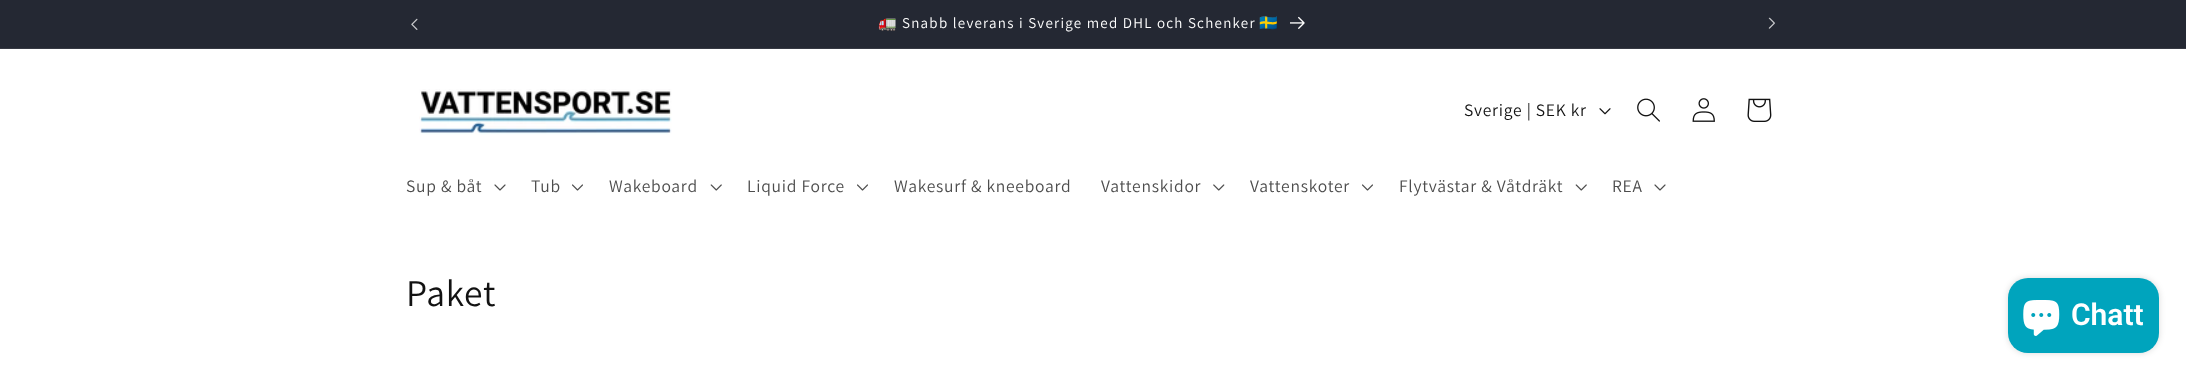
(async () => {
  const canvas = document.querySelector("canvas");
  canvas.width = 2186;
  canvas.height = 378;
  const ctx = canvas.getContext("2d");
  ctx.miterLimit = 4;
  ctx.fontKerning = "normal";
  async function loadImage(src) {
    const img = new Image();
    img.src = src;
    await img.decode();
    return img;
  }

  ctx.fillStyle = "#ffffff";
  ctx.fillRect(0, 0, 2186, 378);
  ctx.fillStyle = "#242833";
  ctx.fillRect(0, 0, 2186, 48);
  ctx.fillStyle = "#363943";
  ctx.fillRect(0, 48, 2186, 1);
  ctx.drawImage(await loadImage("img/1.png"), 411, 18, 7, 12);
  ctx.drawImage(await loadImage("img/2.png"), 1290, 16, 15, 13);
  ctx.drawImage(await loadImage("img/3.png"), 1768, 17, 7, 12);
  ctx.drawImage(await loadImage("img/4.png"), 419, 89, 253, 46);
  ctx.drawImage(await loadImage("img/5.png"), 1599, 108, 12, 7);
  ctx.drawImage(await loadImage("img/6.png"), 1637, 98, 23, 24);
  ctx.drawImage(await loadImage("img/7.png"), 1692, 98, 23, 24);
  ctx.drawImage(await loadImage("img/8.png"), 1747, 98, 25, 24);
  ctx.drawImage(await loadImage("img/9.png"), 494, 184, 12, 7);
  ctx.drawImage(await loadImage("img/10.png"), 572, 184, 11, 7);
  ctx.drawImage(await loadImage("img/11.png"), 710, 184, 12, 7);
  ctx.drawImage(await loadImage("img/10.png"), 857, 184, 11, 7);
  ctx.drawImage(await loadImage("img/12.png"), 1213, 184, 12, 7);
  ctx.drawImage(await loadImage("img/10.png"), 1362, 184, 11, 7);
  ctx.drawImage(await loadImage("img/11.png"), 1575, 184, 12, 7);
  ctx.drawImage(await loadImage("img/9.png"), 1654, 184, 12, 7);
  ctx.fillStyle = "rgba(0, 0, 0, 0.15)";
  ctx.filter = "blur(3px)";
  ctx.beginPath();
  ctx.roundRect(2008, 278, 151, 75, 20);
  ctx.fill();
  ctx.filter = "none";
  ctx.fillStyle = "#00a4bd";
  ctx.beginPath();
  ctx.roundRect(2008, 278, 151, 75, 20);
  ctx.fill();
  ctx.drawImage(await loadImage("img/13.png"), 2023, 300, 37, 36);
  ctx.letterSpacing = "1.25px";
  ctx.font = "15px Noto Color Emoji";
  ctx.fillStyle = "#ffffff";
  ctx.fillText("🚛", 878, 28);
  ctx.font = "15px Assistant";
  ctx.fillText("Snabb leverans i Sverige med DHL och Schenker", 902, 28);
  ctx.font = "15px Noto Color Emoji";
  ctx.fillText("🇸🇪", 1259, 28);
  ctx.letterSpacing = "0.75px";
  ctx.font = "17.5px Assistant";
  ctx.fillStyle = "#121212";
  ctx.fillText("Sverige | SEK kr", 1464, 116);
  ctx.fillStyle = "#4d4d4d";
  for (const [text, x, y] of [
    ["Sup & båt", 406, 192],
    ["Tub", 531, 192],
    ["Wakeboard", 609, 192],
    ["Liquid Force", 747, 192],
    ["Wakesurf & kneeboard", 894, 192],
    ["Vattenskidor", 1101, 192],
    ["Vattenskoter", 1250, 192],
    ["Flytvästar & Våtdräkt", 1399, 192],
    ["REA", 1612, 192],
  ]) {
    ctx.fillText(text, x, y);
  }
  ctx.font = "37.5px Assistant";
  ctx.fillStyle = "#121212";
  ctx.fillText("Paket", 406, 306);
  ctx.letterSpacing = "0px";
  ctx.font = "600 30px Roboto";
  ctx.fillStyle = "#ffffff";
  ctx.fillText("Chatt", 2071, 325);
})();
